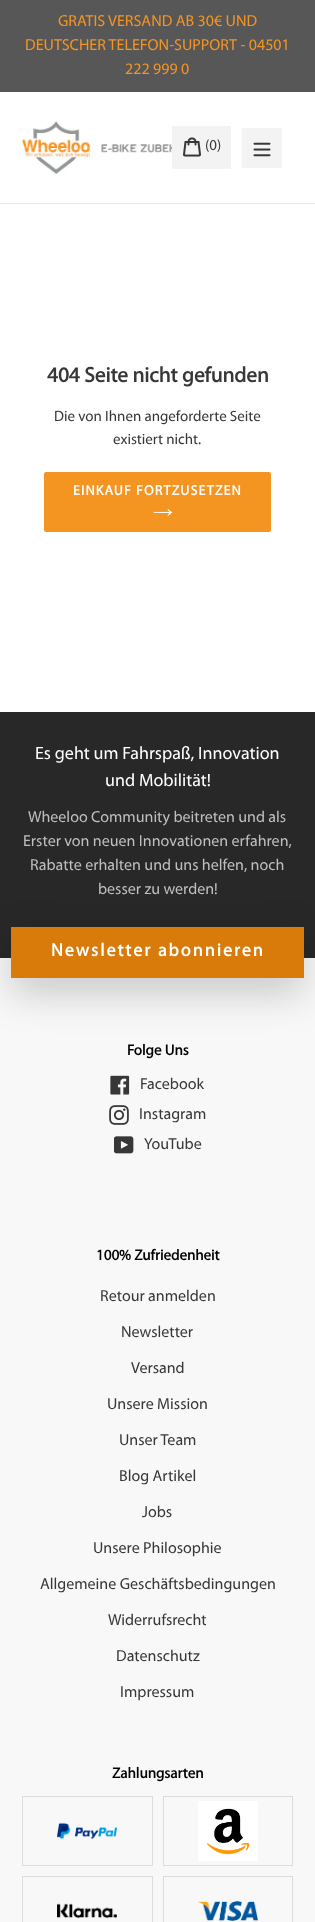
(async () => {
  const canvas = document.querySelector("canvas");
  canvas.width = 315;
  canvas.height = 1922;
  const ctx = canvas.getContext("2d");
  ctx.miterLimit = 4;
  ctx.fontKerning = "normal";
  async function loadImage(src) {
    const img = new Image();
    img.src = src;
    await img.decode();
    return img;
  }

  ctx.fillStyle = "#ffffff";
  ctx.fillRect(0, 0, 315, 1922);
  ctx.fillStyle = "#575757";
  ctx.fillRect(0, 0, 315, 92);
  ctx.fillStyle = "#e8e9eb";
  ctx.fillRect(0, 203, 315, 1);
  ctx.drawImage(await loadImage("img/1.png"), 22, 121, 170, 53);
  ctx.fillStyle = "#f3f3f3";
  ctx.fillRect(172, 126, 59, 43);
  ctx.drawImage(await loadImage("img/2.png"), 183, 137, 18, 20);
  ctx.fillRect(242, 128, 40, 40);
  ctx.drawImage(await loadImage("img/3.png"), 253, 142, 18, 15);
  ctx.fillStyle = "#f49522";
  ctx.beginPath();
  ctx.roundRect(44, 472, 227, 60, 2);
  ctx.fill();
  ctx.drawImage(await loadImage("img/4.png"), 153, 508, 20, 8);
  ctx.fillStyle = "#f8f8f8";
  ctx.fillRect(0, 958, 315, 964);
  ctx.fillStyle = "#282828";
  ctx.fillRect(0, 712, 315, 246);
  ctx.fillStyle = "rgba(0, 0, 0, 0.2)";
  ctx.filter = "blur(20px)";
  ctx.beginPath();
  ctx.rect(11, 941, 293, 51);
  ctx.fill();
  ctx.filter = "none";
  ctx.fillStyle = "#d87b0b";
  ctx.fillRect(11, 927, 293, 51);
  ctx.drawImage(await loadImage("img/5.png"), 110, 1075, 20, 20);
  ctx.drawImage(await loadImage("img/6.png"), 109, 1105, 20, 20);
  ctx.drawImage(await loadImage("img/7.png"), 114, 1136, 20, 18);
  ctx.strokeStyle = "#dddddd";
  ctx.strokeRect(22.5, 1796.5, 130, 69);
  ctx.drawImage(await loadImage("img/8.png"), 57, 1822, 60, 18);
  ctx.strokeRect(163.5, 1796.5, 129, 69);
  ctx.drawImage(await loadImage("img/9.png"), 198, 1801, 60, 60);
  ctx.strokeRect(22.5, 1876.5, 130, 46);
  ctx.drawImage(await loadImage("img/10.png"), 57, 1903, 60, 16);
  ctx.strokeRect(163.5, 1876.5, 129, 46);
  ctx.drawImage(await loadImage("img/11.png"), 198, 1901, 60, 20);
  ctx.font = "16px Myriad";
  ctx.fillStyle = "#f49522";
  for (const [text, x, y] of [
    ["GRATIS VERSAND AB 30€ UND", 58, 26],
    ["DEUTSCHER TELEFON-SUPPORT - 04501", 25, 50],
    ["222 999 0", 125, 74],
  ]) {
    ctx.fillText(text, x, y);
  }
  ctx.font = "15px Myriad";
  ctx.fillStyle = "#373737";
  ctx.fillText("(0)", 205, 150);
  ctx.font = "bold 21.25px Myriad";
  ctx.fillText("404 Seite nicht gefunden", 47, 382);
  ctx.font = "15px Myriad";
  ctx.fillText("Die von Ihnen angeforderte Seite", 54, 421);
  ctx.fillText("existiert nicht.", 113, 444);
  ctx.letterSpacing = "1.1px";
  ctx.font = "bold 14px Myriad";
  ctx.fillStyle = "#ffffff";
  ctx.fillText("EINKAUF FORTZUSETZEN", 73, 495);
  ctx.letterSpacing = "0px";
  ctx.font = "18px Myriad";
  ctx.fillText("Es geht um Fahrspaß, Innovation", 35, 759);
  ctx.fillText("und Mobilität!", 105, 786);
  ctx.font = "16px Myriad";
  ctx.fillStyle = "#bfbfbf";
  for (const [text, x, y] of [
    ["Wheeloo Community beitreten und als", 28, 822],
    ["Erster von neuen Innovationen erfahren,", 23, 846],
    ["Rabatte erhalten und uns helfen, noch", 30, 870],
    ["besser zu werden!", 98, 894],
  ]) {
    ctx.fillText(text, x, y);
  }
  ctx.letterSpacing = "2px";
  ctx.font = "bold 18px Myriad";
  ctx.fillStyle = "#ffffff";
  ctx.fillText("Newsletter abonnieren", 51, 956);
  ctx.letterSpacing = "0px";
  ctx.font = "bold 15px Myriad";
  ctx.fillStyle = "#000000";
  ctx.fillText("Folge Uns", 127, 1055);
  ctx.font = "16px Myriad";
  ctx.fillStyle = "#373737";
  for (const [text, x, y] of [
    ["Facebook", 140, 1089],
    ["Instagram", 139, 1119],
    ["YouTube", 144, 1149],
  ]) {
    ctx.fillText(text, x, y);
  }
  ctx.font = "bold 15px Myriad";
  ctx.fillStyle = "#000000";
  ctx.fillText("100% Zufriedenheit", 96, 1260);
  ctx.font = "16px Myriad";
  ctx.fillStyle = "#373737";
  for (const [text, x, y] of [
    ["Retour anmelden", 100, 1301],
    ["Newsletter", 121, 1337],
    ["Versand", 131, 1373],
    ["Unsere Mission", 107, 1409],
    ["Unser Team", 119, 1445],
    ["Blog Artikel", 119, 1481],
    ["Jobs", 142, 1517],
    ["Unsere Philosophie", 93, 1553],
    ["Allgemeine Geschäftsbedingungen", 40, 1589],
    ["Widerrufsrecht", 108, 1625],
    ["Datenschutz", 116, 1661],
    ["Impressum", 120, 1697],
  ]) {
    ctx.fillText(text, x, y);
  }
  ctx.font = "bold 15px Myriad";
  ctx.fillStyle = "#000000";
  ctx.fillText("Zahlungsarten", 112, 1778);
})();
